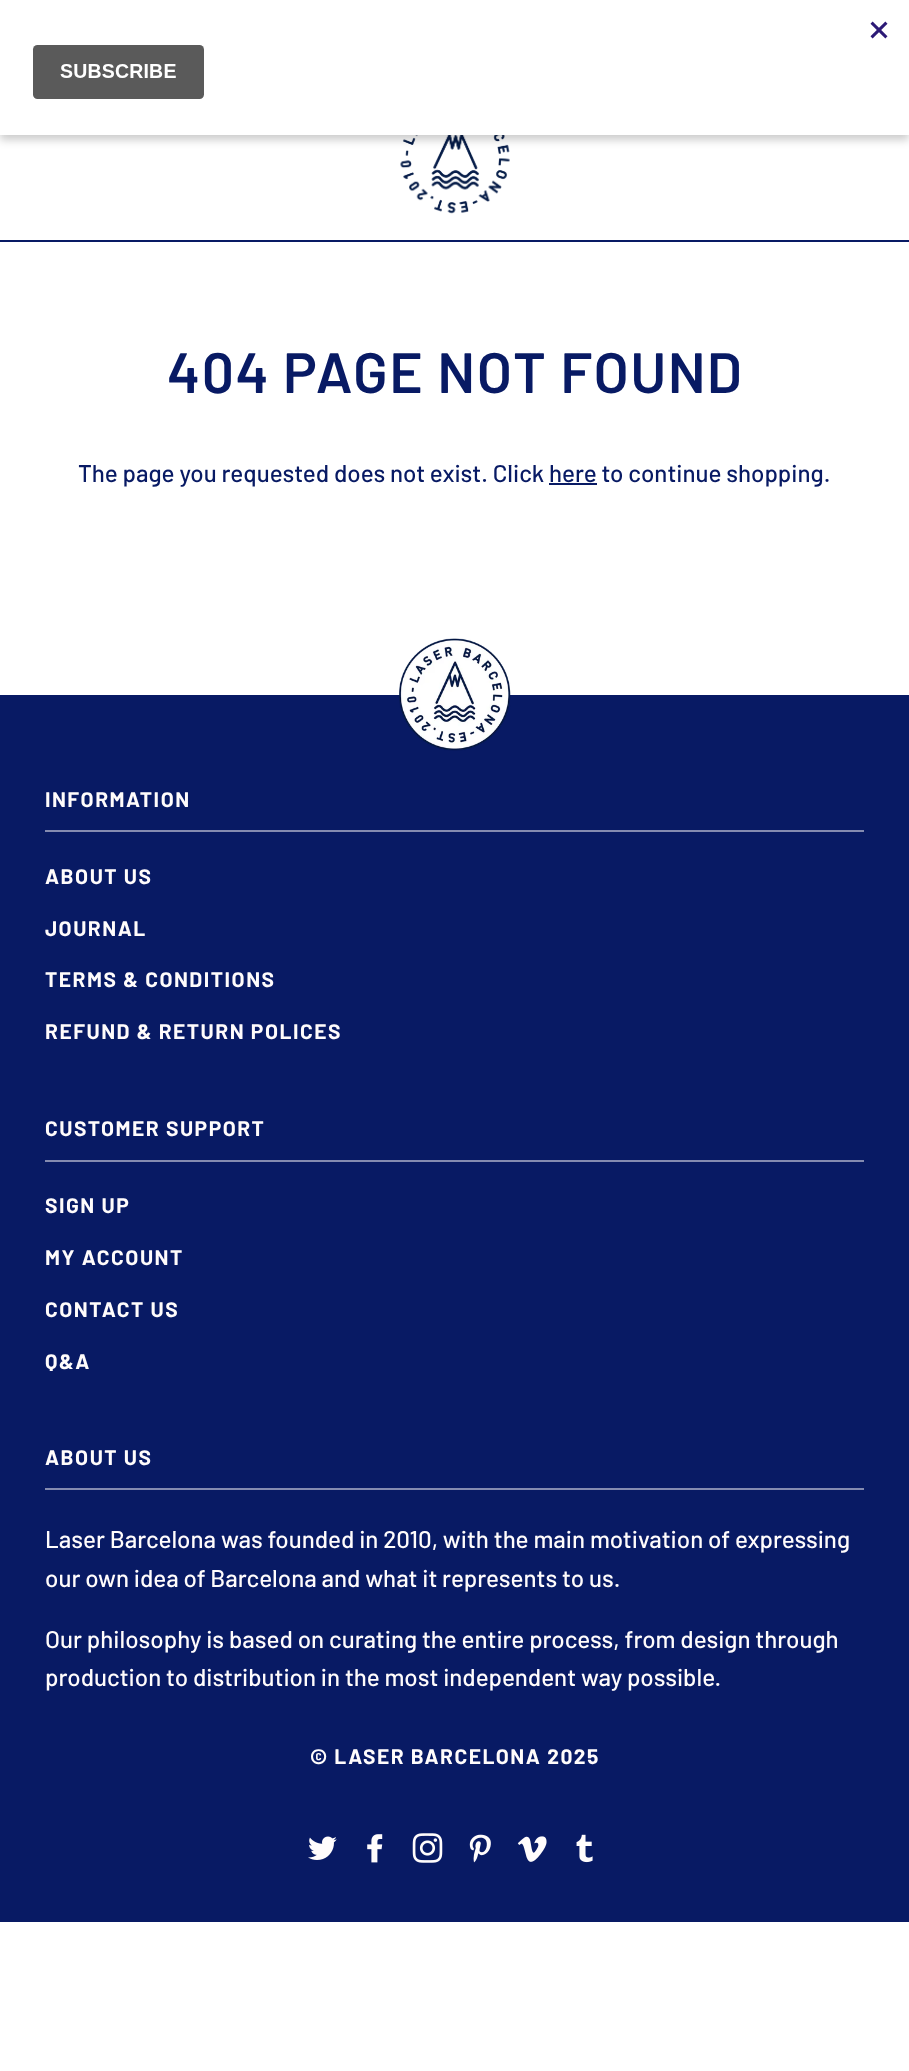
(async () => {
  const canvas = document.querySelector("canvas");
  canvas.width = 909;
  canvas.height = 2071;
  const ctx = canvas.getContext("2d");
  ctx.miterLimit = 4;
  ctx.fontKerning = "normal";
  async function loadImage(src) {
    const img = new Image();
    img.src = src;
    await img.decode();
    return img;
  }

  ctx.fillStyle = "#ffffff";
  ctx.fillRect(0, 0, 909, 2071);
  ctx.drawImage(await loadImage("img/2.png"), 400, 135, 110, 79);
  ctx.fillStyle = "rgba(0, 0, 0, 0.2)";
  ctx.filter = "blur(4.5px)";
  ctx.beginPath();
  ctx.rect(0, 5, 909, 135);
  ctx.fill();
  ctx.filter = "none";
  ctx.fillStyle = "#ffffff";
  ctx.fillRect(0, 0, 909, 135);
  ctx.drawImage(await loadImage("img/1.png"), 32, 21, 856, 78);
  for (const [x, y, w, h, color] of [
    [0, 240, 909, 2, "#081a64"],
    [549, 483, 48, 2, "#081a64"],
    [0, 695, 909, 1227, "#081a64"],
  ]) {
    ctx.fillStyle = color;
    ctx.fillRect(x, y, w, h);
  }
  ctx.drawImage(await loadImage("img/3.png"), 399, 638, 112, 113);
  for (const [x, y, w, h, color] of [
    [45, 830, 819, 2, "#848bb0"],
    [45, 1160, 819, 2, "#848bb0"],
    [45, 1488, 819, 2, "#848bb0"],
  ]) {
    ctx.fillStyle = color;
    ctx.fillRect(x, y, w, h);
  }
  ctx.drawImage(await loadImage("img/4.png"), 308, 1836, 29, 24);
  ctx.drawImage(await loadImage("img/5.png"), 367, 1834, 16, 29);
  ctx.drawImage(await loadImage("img/6.png"), 412, 1833, 31, 30);
  ctx.drawImage(await loadImage("img/7.png"), 469, 1834, 22, 29);
  ctx.drawImage(await loadImage("img/8.png"), 517, 1836, 30, 26);
  ctx.drawImage(await loadImage("img/9.png"), 576, 1834, 17, 29);
  ctx.letterSpacing = "1.5px";
  ctx.font = "600 56.75px Barlow";
  ctx.fillStyle = "#081a64";
  ctx.fillText("404 PAGE NOT FOUND", 167, 393);
  ctx.letterSpacing = "0px";
  ctx.font = "500 24.15px Barlow";
  ctx.fillText("The page you requested does not exist. Click here to continue shopping.", 78, 482);
  ctx.letterSpacing = "1.5px";
  ctx.font = "bold 21px Barlow";
  ctx.fillStyle = "#fffcfc";
  for (const [text, x, y] of [
    ["INFORMATION", 45, 807],
    ["ABOUT US", 45, 884],
    ["JOURNAL", 45, 936],
    ["TERMS & CONDITIONS", 45, 987],
    ["REFUND & RETURN POLICES", 45, 1039],
    ["CUSTOMER SUPPORT", 45, 1136],
    ["SIGN UP", 45, 1213],
    ["MY ACCOUNT", 45, 1265],
    ["CONTACT US", 45, 1317],
    ["Q&A", 45, 1369],
    ["ABOUT US", 45, 1465],
  ]) {
    ctx.fillText(text, x, y);
  }
  ctx.letterSpacing = "0px";
  ctx.font = "500 24.15px Barlow";
  for (const [text, x, y] of [
    ["Laser Barcelona was founded in 2010, with the main motivation of expressing", 45, 1548],
    ["our own idea of Barcelona and what it represents to us.", 45, 1587],
    ["Our philosophy is based on curating the entire process, from design through", 45, 1648],
    ["production to distribution in the most independent way possible.", 45, 1686],
  ]) {
    ctx.fillText(text, x, y);
  }
  ctx.letterSpacing = "1.5px";
  ctx.font = "bold 21px Barlow";
  ctx.fillText("© LASER BARCELONA 2025", 310, 1764);
})();
